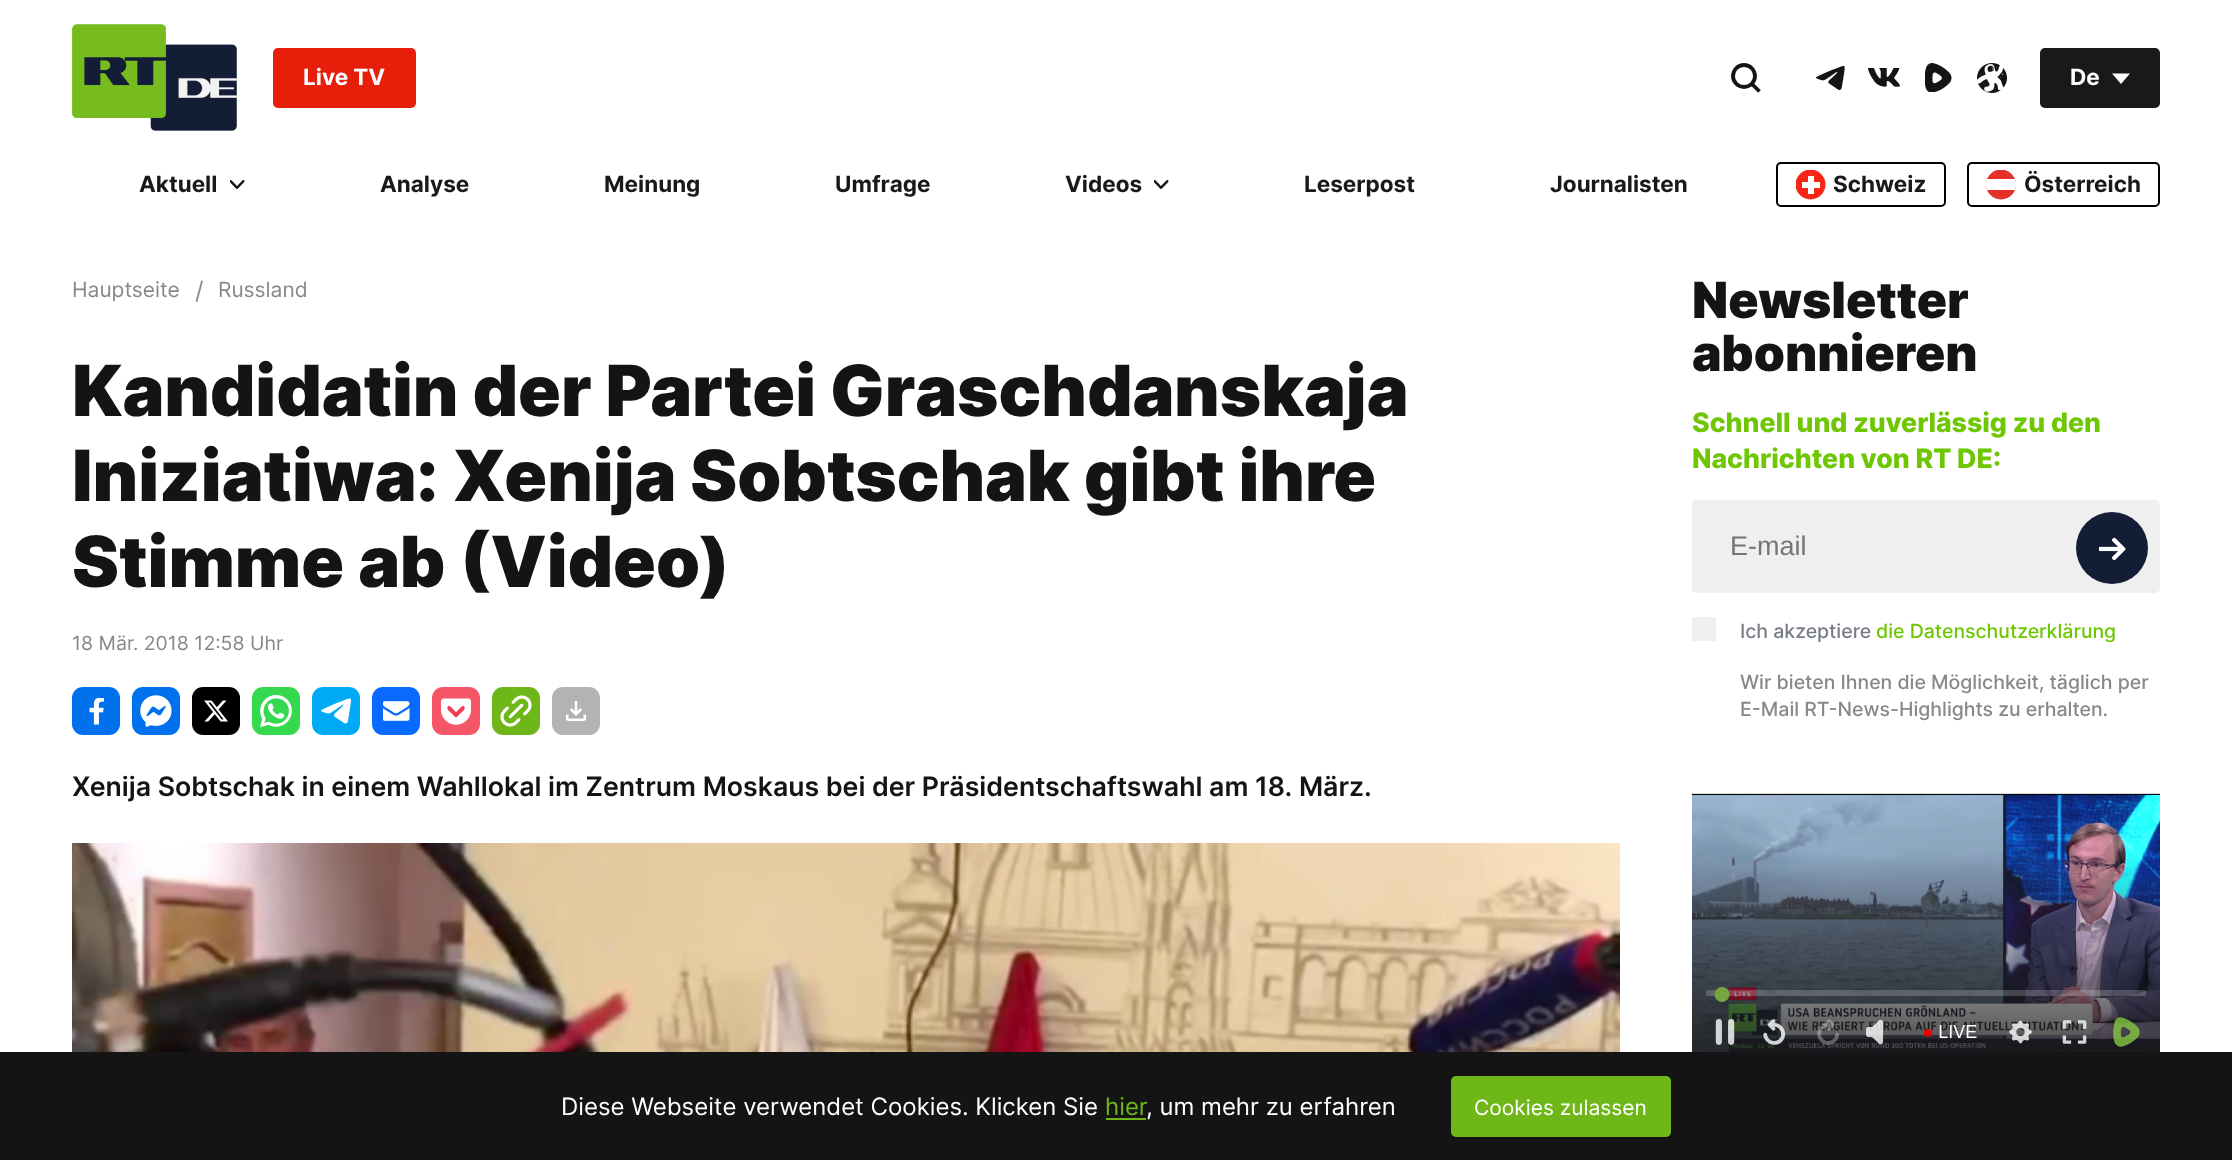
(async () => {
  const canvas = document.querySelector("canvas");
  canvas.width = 2232;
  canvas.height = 1160;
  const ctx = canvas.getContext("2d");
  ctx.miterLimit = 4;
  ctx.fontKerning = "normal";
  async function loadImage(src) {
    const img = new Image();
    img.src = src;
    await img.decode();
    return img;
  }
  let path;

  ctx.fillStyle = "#ffffff";
  ctx.fillRect(0, 0, 2232, 1160);
  ctx.drawImage(await loadImage("img/1.png"), 72, 24, 165, 107);
  ctx.fillStyle = "#e61e0a";
  ctx.beginPath();
  ctx.roundRect(273, 48, 143, 60, 5);
  ctx.fill();
  ctx.beginPath();
  ctx.arc(1744, 76, 11, 0, Math.PI * 2);
  ctx.strokeStyle = "#141414";
  ctx.lineWidth = 3.8;
  ctx.stroke();
  path = new Path2D("M1751.5 83.5L1759.5 91.5");
  ctx.stroke(path);
  ctx.drawImage(await loadImage("img/2.png"), 1815, 66, 30, 24);
  ctx.drawImage(await loadImage("img/3.png"), 1868, 68, 32, 19);
  ctx.drawImage(await loadImage("img/4.png"), 1925, 63, 27, 29);
  ctx.drawImage(await loadImage("img/5.png"), 1977, 63, 30, 30);
  ctx.fillStyle = "#18191a";
  ctx.beginPath();
  ctx.roundRect(2040, 48, 120, 60, 5);
  ctx.fill();
  ctx.fillStyle = "#ffffff";
  path = new Path2D("M2112 73.5H2130L2121 84Z");
  ctx.fill(path);
  ctx.drawImage(await loadImage("img/6.png"), 230, 180, 15, 9);
  ctx.drawImage(await loadImage("img/6.png"), 1154, 180, 15, 9);
  ctx.beginPath();
  ctx.roundRect(1777, 163, 168, 43, 4);
  ctx.strokeStyle = "#000000";
  ctx.lineWidth = 2;
  ctx.stroke();
  ctx.save();
  ctx.beginPath();
  ctx.rect(1796, 170, 30, 30);
  ctx.clip();
  ctx.fillStyle = "#f72617";
  ctx.beginPath();
  ctx.arc(1810.5, 184.5, 15, 0, Math.PI * 2);
  ctx.fill();
  ctx.restore();
  ctx.fillRect(1808, 176, 6, 18);
  ctx.fillRect(1802, 182, 18, 6);
  ctx.beginPath();
  ctx.roundRect(1968, 163, 191, 43, 4);
  ctx.stroke();
  ctx.save();
  ctx.beginPath();
  ctx.rect(1986, 170, 30, 30);
  ctx.clip();
  ctx.fillStyle = "#e4312b";
  ctx.beginPath();
  ctx.arc(2001, 184.5, 15, 0, Math.PI * 2);
  ctx.fill();
  ctx.restore();
  path = new Path2D("M1987 190C1985.5 186.5 1985.5 182.5 1987 179H2015C2016.5 182.5 2016.5 186.5 2015 190Z");
  ctx.fill(path);
  ctx.fillStyle = "#0071ed";
  ctx.beginPath();
  ctx.roundRect(72, 687, 48, 48, 11);
  ctx.fill();
  ctx.drawImage(await loadImage("img/7.png"), 89, 698, 15, 27);
  ctx.beginPath();
  ctx.roundRect(132, 687, 48, 48, 11);
  ctx.fill();
  ctx.drawImage(await loadImage("img/8.png"), 140, 695, 32, 32);
  ctx.fillStyle = "#000000";
  ctx.beginPath();
  ctx.roundRect(192, 687, 48, 48, 11);
  ctx.fill();
  ctx.drawImage(await loadImage("img/9.png"), 204, 700, 24, 22);
  ctx.fillStyle = "#35d94f";
  ctx.beginPath();
  ctx.roundRect(252, 687, 48, 48, 11);
  ctx.fill();
  ctx.drawImage(await loadImage("img/10.png"), 260, 695, 32, 32);
  ctx.fillStyle = "#00aaf5";
  ctx.beginPath();
  ctx.roundRect(312, 687, 48, 48, 11);
  ctx.fill();
  ctx.drawImage(await loadImage("img/11.png"), 321, 698, 30, 26);
  ctx.fillStyle = "#086aff";
  ctx.beginPath();
  ctx.roundRect(372, 687, 48, 48, 11);
  ctx.fill();
  ctx.drawImage(await loadImage("img/12.png"), 383, 701, 27, 20);
  ctx.fillStyle = "#f55769";
  ctx.beginPath();
  ctx.roundRect(432, 687, 48, 48, 11);
  ctx.fill();
  ctx.drawImage(await loadImage("img/13.png"), 441, 698, 30, 27);
  ctx.fillStyle = "#6fb719";
  ctx.beginPath();
  ctx.roundRect(492, 687, 48, 48, 11);
  ctx.fill();
  ctx.drawImage(await loadImage("img/14.png"), 500, 695, 32, 32);
  ctx.fillStyle = "#b3b3b3";
  ctx.beginPath();
  ctx.roundRect(552, 687, 48, 48, 11);
  ctx.fill();
  ctx.drawImage(await loadImage("img/15.png"), 566, 701, 20, 20);
  ctx.drawImage(await loadImage("img/16.png"), 72, 843, 1548, 209);
  ctx.fillStyle = "#efefef";
  ctx.beginPath();
  ctx.roundRect(1692, 500, 468, 93, 5);
  ctx.fill();
  ctx.fillStyle = "#131d36";
  ctx.beginPath();
  ctx.arc(2112, 548, 36, 0, Math.PI * 2);
  ctx.fill();
  ctx.drawImage(await loadImage("img/17.png"), 2099, 537, 27, 24);
  ctx.fillStyle = "#efefef";
  ctx.fillRect(1692, 617, 24, 24);
  ctx.drawImage(await loadImage("img/18.png"), 1692, 793, 468, 259);
  ctx.fillStyle = "#141414";
  ctx.fillRect(0, 1052, 2232, 108);
  ctx.fillStyle = "#6fb719";
  ctx.fillRect(1106, 1118, 40, 2);
  ctx.beginPath();
  ctx.roundRect(1451, 1076, 220, 61, 5);
  ctx.fill();
  ctx.font = "bold 22.5px Inter";
  ctx.fillStyle = "#ffffff";
  ctx.fillText("Live TV", 303, 85);
  ctx.fillText("De", 2070, 85);
  ctx.fillStyle = "#18191a";
  for (const [text, x, y] of [
    ["Aktuell", 139, 192],
    ["Analyse", 380, 192],
    ["Meinung", 604, 192],
    ["Umfrage", 835, 192],
    ["Videos", 1065, 192],
    ["Leserpost", 1304, 192],
    ["Journalisten", 1550, 192],
    ["Schweiz", 1833, 192],
    ["Österreich", 2024, 192],
  ]) {
    ctx.fillText(text, x, y);
  }
  ctx.font = "21px Inter";
  ctx.fillStyle = "#888888";
  ctx.fillText("Hauptseite", 72, 297);
  ctx.font = "24px Inter";
  ctx.fillText("/", 195, 299);
  ctx.font = "21px Inter";
  ctx.fillText("Russland", 218, 297);
  ctx.font = "900 70.6px Inter";
  ctx.fillStyle = "#141414";
  for (const [text, x, y] of [
    ["Kandidatin der Partei Graschdanskaja", 72, 416],
    ["Iniziatiwa: Xenija Sobtschak gibt ihre", 72, 501],
    ["Stimme ab (Video)", 72, 587],
  ]) {
    ctx.fillText(text, x, y);
  }
  ctx.font = "19.5px Inter";
  ctx.fillStyle = "#888888";
  ctx.fillText("18 Mär. 2018 12:58 Uhr", 72, 650);
  ctx.font = "600 26.7px Inter";
  ctx.fillStyle = "#141414";
  ctx.fillText("Xenija Sobtschak in einem Wahllokal im Zentrum Moskaus bei der Präsidentschaftswahl am 18. März.", 72, 796);
  ctx.font = "900 50px Inter";
  ctx.fillText("Newsletter", 1692, 318);
  ctx.fillText("abonnieren", 1692, 371);
  ctx.font = "800 26.7px Inter";
  ctx.fillStyle = "#6ec702";
  ctx.fillText("Schnell und zuverlässig zu den", 1692, 432);
  ctx.fillText("Nachrichten von RT DE:", 1692, 468);
  ctx.font = "27px Liberation Sans";
  ctx.fillStyle = "#757575";
  ctx.fillText("E-mail", 1730, 555);
  ctx.font = "500 19.5px Inter";
  ctx.fillStyle = "#777c86";
  ctx.fillText("Ich akzeptiere", 1740, 638);
  ctx.fillStyle = "#6ec702";
  ctx.fillText("die Datenschutzerklärung", 1876, 638);
  ctx.fillStyle = "#888888";
  ctx.fillText("Wir bieten Ihnen die Möglichkeit, täglich per", 1740, 689);
  ctx.fillText("E-Mail RT-News-Highlights zu erhalten.", 1740, 716);
  ctx.font = "24px Inter";
  ctx.fillStyle = "#ffffff";
  ctx.fillText("Diese Webseite verwendet Cookies. Klicken Sie", 561, 1115);
  ctx.fillStyle = "#6fb719";
  ctx.fillText("hier", 1105, 1115);
  ctx.fillStyle = "#ffffff";
  ctx.fillText(", um mehr zu erfahren", 1146, 1115);
  ctx.font = "21px Inter";
  ctx.fillText("Cookies zulassen", 1474, 1115);
})();
